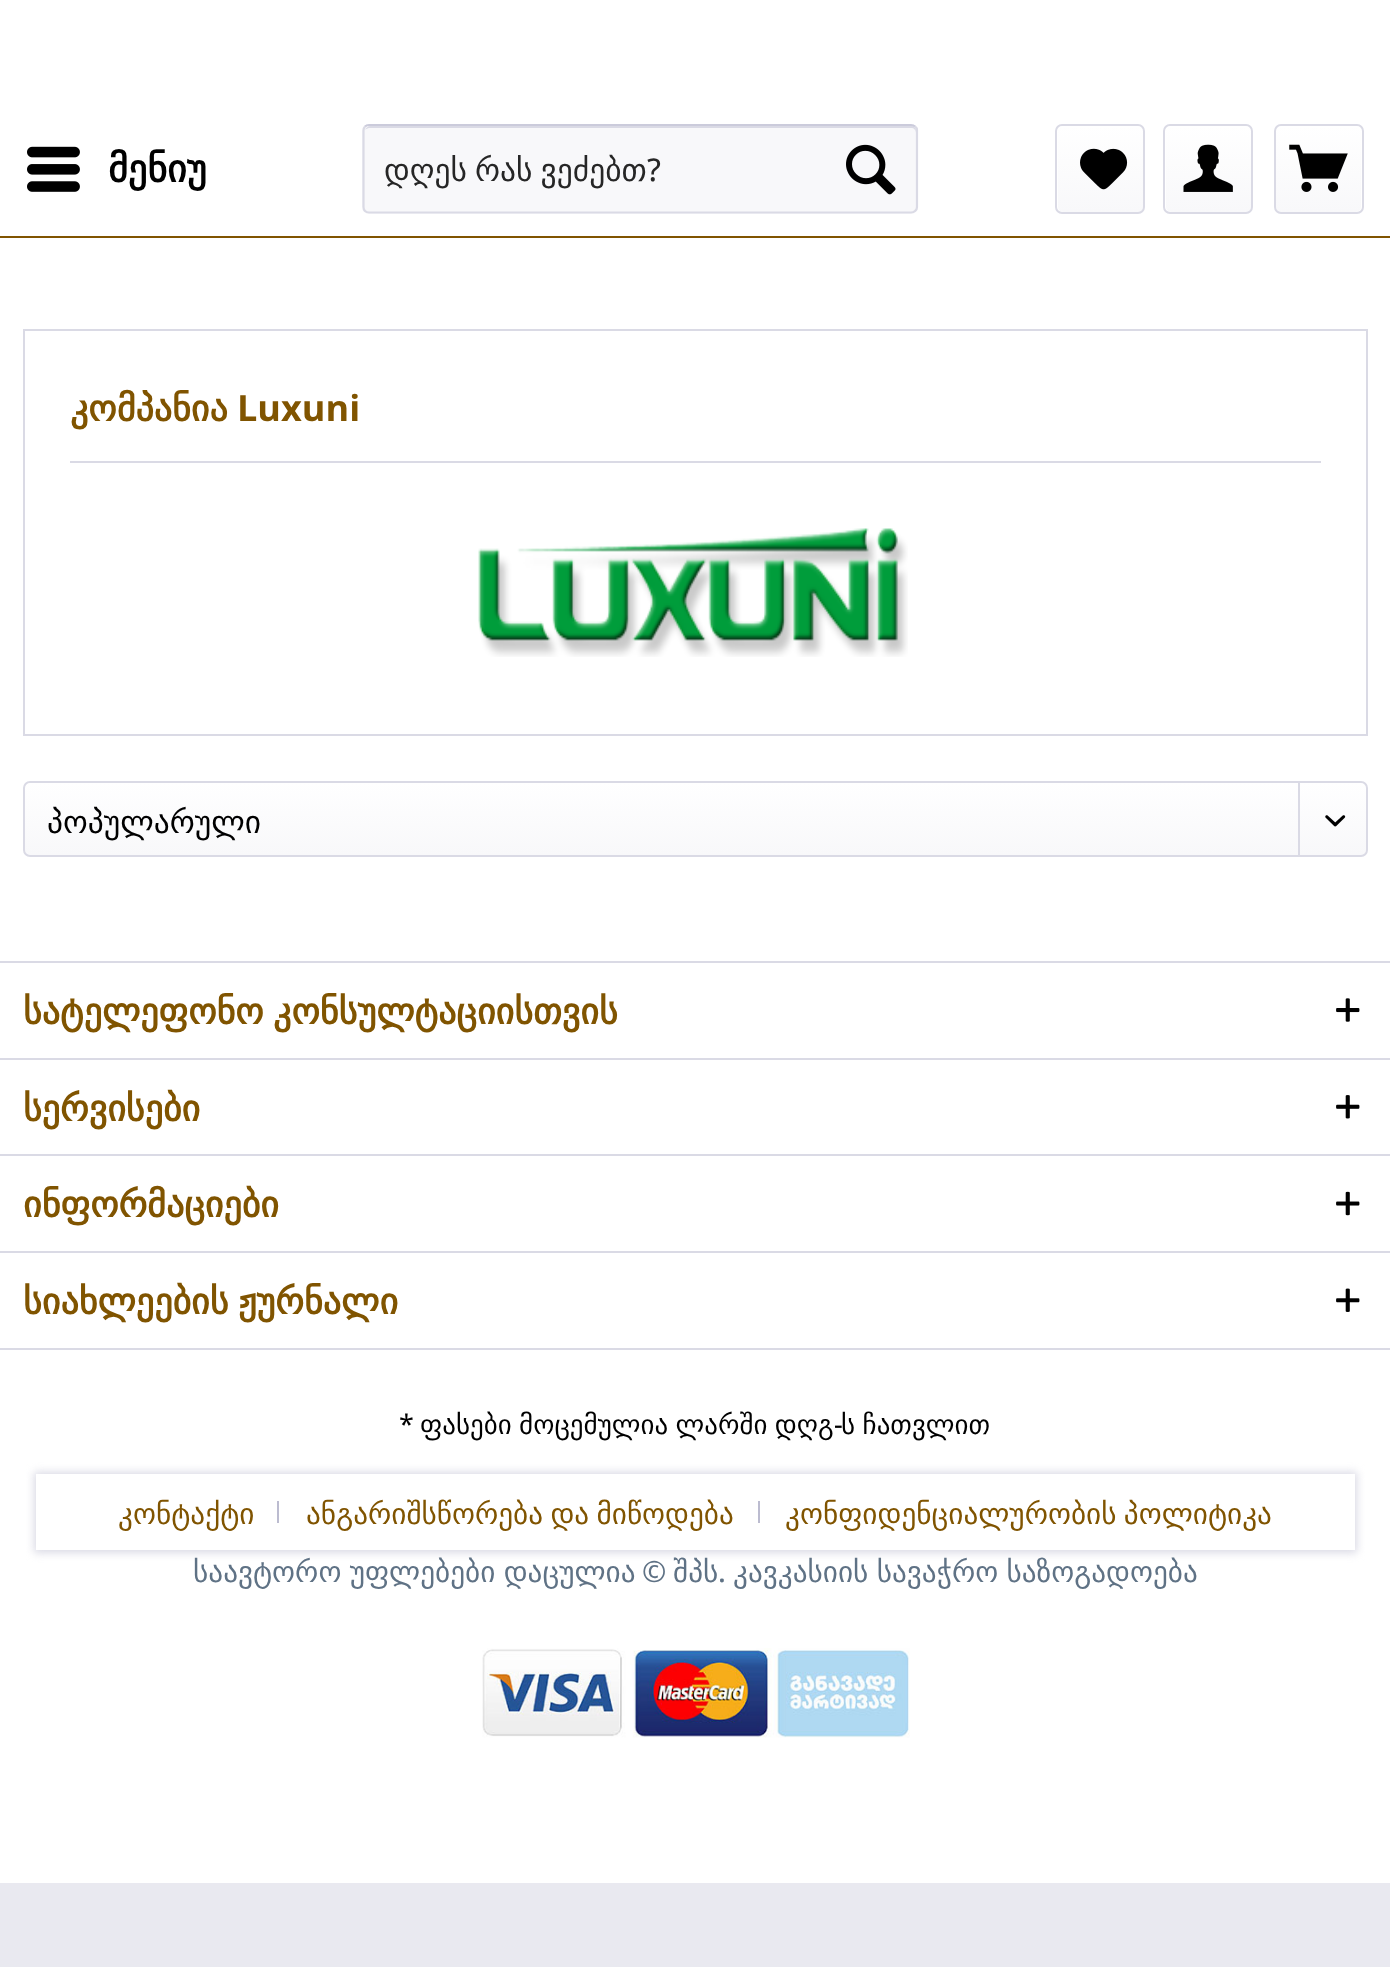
(async () => {
  const canvas = document.querySelector("canvas");
  canvas.width = 1390;
  canvas.height = 1967;
  const ctx = canvas.getContext("2d");
  ctx.miterLimit = 4;
  ctx.fontKerning = "normal";
  async function loadImage(src) {
    const img = new Image();
    img.src = src;
    await img.decode();
    return img;
  }
  let gradient, path;

  ctx.fillStyle = "#e9e9f0";
  ctx.fillRect(0, 0, 1390, 1967);
  ctx.fillStyle = "#ffffff";
  ctx.fillRect(0, 0, 1390, 1883);
  ctx.fillStyle = "#805400";
  ctx.fillRect(0, 236, 1390, 2);
  ctx.drawImage(await loadImage("img/1.png"), 27, 146, 53, 46);
  ctx.fillStyle = "#f8f8fa";
  ctx.beginPath();
  ctx.roundRect(362, 124, 556, 90, 7);
  ctx.fill();
  ctx.fillStyle = "#dadae5";
  path = new Path2D("M369 128H911C914 128 916 130 916 133V131C916 128 914 126 911 126H370C368 126 366 128 365 130C366 129 368 128 369 128Z");
  ctx.fill(path);
  path = new Path2D("M365 126.5C366 125.5 367.5 125 369 125H911C912.5 125 914 125.5 915 126.5");
  ctx.strokeStyle = "#cbcbdb";
  ctx.lineWidth = 2.2;
  ctx.stroke(path);
  path = new Path2D("M915 126.5C916.5 127.5 917 129 917 130.5V207C917 208.5 916.5 210 915 211C914 212 912.5 212.5 911 212.5H369C367.5 212.5 366 212 365 211C364 210 363.5 208.5 363.5 207V130.5C363.5 129 364 127.5 365 126.5");
  ctx.strokeStyle = "#dadae5";
  ctx.stroke(path);
  ctx.drawImage(await loadImage("img/2.png"), 846, 144, 50, 51);
  gradient = ctx.createLinearGradient(1100, 126, 1100, 212);
  gradient.addColorStop(0, "#ffffff");
  gradient.addColorStop(1, "#f8f8fa");
  ctx.fillStyle = gradient;
  ctx.beginPath();
  ctx.roundRect(1058, 126, 85, 86, 5);
  ctx.fill();
  ctx.beginPath();
  ctx.roundRect(1056, 125, 88, 88, 6);
  ctx.lineWidth = 2;
  ctx.stroke();
  ctx.drawImage(await loadImage("img/3.png"), 1080, 148, 48, 42);
  gradient = ctx.createLinearGradient(1208, 126, 1208, 212);
  gradient.addColorStop(0, "#ffffff");
  gradient.addColorStop(1, "#f8f8fa");
  ctx.fillStyle = gradient;
  ctx.beginPath();
  ctx.roundRect(1166, 126, 85, 86, 5);
  ctx.fill();
  ctx.beginPath();
  ctx.roundRect(1164, 125, 88, 88, 6);
  ctx.stroke();
  ctx.drawImage(await loadImage("img/4.png"), 1183, 144, 50, 48);
  gradient = ctx.createLinearGradient(1319, 126, 1319, 212);
  gradient.addColorStop(0, "#ffffff");
  gradient.addColorStop(1, "#f8f8fa");
  ctx.fillStyle = gradient;
  ctx.beginPath();
  ctx.roundRect(1276, 126, 85, 86, 5);
  ctx.fill();
  ctx.beginPath();
  ctx.roundRect(1275, 125, 88, 88, 6);
  ctx.stroke();
  ctx.drawImage(await loadImage("img/5.png"), 1289, 144, 59, 48);
  ctx.strokeRect(24, 330, 1343, 405);
  ctx.fillStyle = "#dadae5";
  ctx.fillRect(70, 461, 1251, 2);
  ctx.drawImage(await loadImage("img/6.png"), 478, 528, 430, 129);
  gradient = ctx.createLinearGradient(695, 783, 695, 855);
  gradient.addColorStop(0, "#ffffff");
  gradient.addColorStop(1, "#f8f8fa");
  ctx.fillStyle = gradient;
  ctx.beginPath();
  ctx.roundRect(25, 783, 1341, 72, 5);
  ctx.fill();
  ctx.beginPath();
  ctx.roundRect(24, 782, 1343, 74, 6);
  ctx.stroke();
  ctx.fillStyle = "#dadae5";
  ctx.fillRect(1298, 783, 2, 74);
  ctx.drawImage(await loadImage("img/7.png"), 1325, 815, 21, 12);
  ctx.fillRect(0, 961, 1390, 2);
  ctx.drawImage(await loadImage("img/8.png"), 1336, 998, 24, 24);
  ctx.fillRect(0, 1058, 1390, 2);
  ctx.drawImage(await loadImage("img/9.png"), 1336, 1095, 24, 24);
  ctx.fillRect(0, 1154, 1390, 2);
  ctx.drawImage(await loadImage("img/10.png"), 1336, 1191, 24, 25);
  ctx.fillRect(0, 1251, 1390, 2);
  ctx.fillRect(0, 1348, 1390, 2);
  ctx.drawImage(await loadImage("img/11.png"), 1336, 1288, 24, 24);
  ctx.filter = "blur(4.5px)";
  ctx.beginPath();
  ctx.rect(34, 1472, 1323, 81);
  ctx.fill();
  ctx.filter = "none";
  for (const [x, y, w, h, color] of [
    [36, 1474, 1319, 76, "#ffffff"],
    [277, 1501, 2, 22, "#bcbcd0"],
    [758, 1501, 2, 22, "#bcbcd0"],
  ]) {
    ctx.fillStyle = color;
    ctx.fillRect(x, y, w, h);
  }
  ctx.drawImage(await loadImage("img/12.png"), 482, 1648, 428, 90);
  ctx.font = "bold 38px DejaVu Sans";
  ctx.fillStyle = "#000000";
  ctx.fillText("მენიუ", 108, 182);
  ctx.wordSpacing = "-2px";
  ctx.font = "31.5px DejaVu Sans";
  ctx.fillStyle = "#262626";
  ctx.fillText("დღეს რას ვეძებთ", 384, 181);
  ctx.wordSpacing = "0px";
  ctx.font = "500 31.5px Open Sans";
  ctx.fillText("?", 647, 181);
  ctx.font = "bold 36px DejaVu Sans";
  ctx.fillStyle = "#805400";
  ctx.fillText("კომპანია", 70, 421);
  ctx.font = "bold 36px Open Sans";
  ctx.fillText("Luxuni", 237, 421);
  ctx.font = "31.5px DejaVu Sans";
  ctx.fillStyle = "#000000";
  ctx.fillText("პოპულარული", 47, 833);
  ctx.wordSpacing = "-2px";
  ctx.font = "bold 36px DejaVu Sans";
  ctx.fillStyle = "#805400";
  ctx.fillText("სატელეფონო კონსულტაციისთვის", 23, 1024);
  ctx.wordSpacing = "0px";
  ctx.fillText("სერვისები", 23, 1121);
  ctx.fillText("ინფორმაციები", 23, 1217);
  ctx.wordSpacing = "-2px";
  ctx.fillText("სიახლეების ჟურნალი", 23, 1314);
  ctx.wordSpacing = "0px";
  ctx.font = "500 27px Open Sans";
  ctx.fillStyle = "#000000";
  ctx.fillText("*", 399, 1434);
  ctx.wordSpacing = "-1.25px";
  ctx.font = "27px DejaVu Sans";
  ctx.fillText("ფასები მოცემულია ლარში დღგ ს ჩათვლით", 420, 1434);
  ctx.wordSpacing = "0px";
  ctx.font = "500 27px Open Sans";
  ctx.fillText("-", 834, 1434);
  ctx.font = "29.25px DejaVu Sans";
  ctx.fillStyle = "#805400";
  ctx.fillText("კონტაქტი", 118, 1524);
  ctx.wordSpacing = "-2px";
  ctx.fillText("ანგარიშსწორება და მიწოდება", 306, 1524);
  ctx.fillText("კონფიდენციალურობის პოლიტიკა", 785, 1524);
  ctx.wordSpacing = "-1px";
  ctx.fillStyle = "#5f7285";
  ctx.fillText("საავტორო უფლებები დაცულია", 193, 1582);
  ctx.wordSpacing = "0px";
  ctx.font = "500 29.25px Open Sans";
  ctx.fillText("©", 642, 1582);
  ctx.font = "29.25px DejaVu Sans";
  ctx.fillText("შპს", 673, 1582);
  ctx.font = "500 29.25px Open Sans";
  ctx.fillText(".", 718, 1582);
  ctx.wordSpacing = "-1px";
  ctx.font = "29.25px DejaVu Sans";
  ctx.fillText("კავკასიის სავაჭრო საზოგადოება", 733, 1582);
})();
